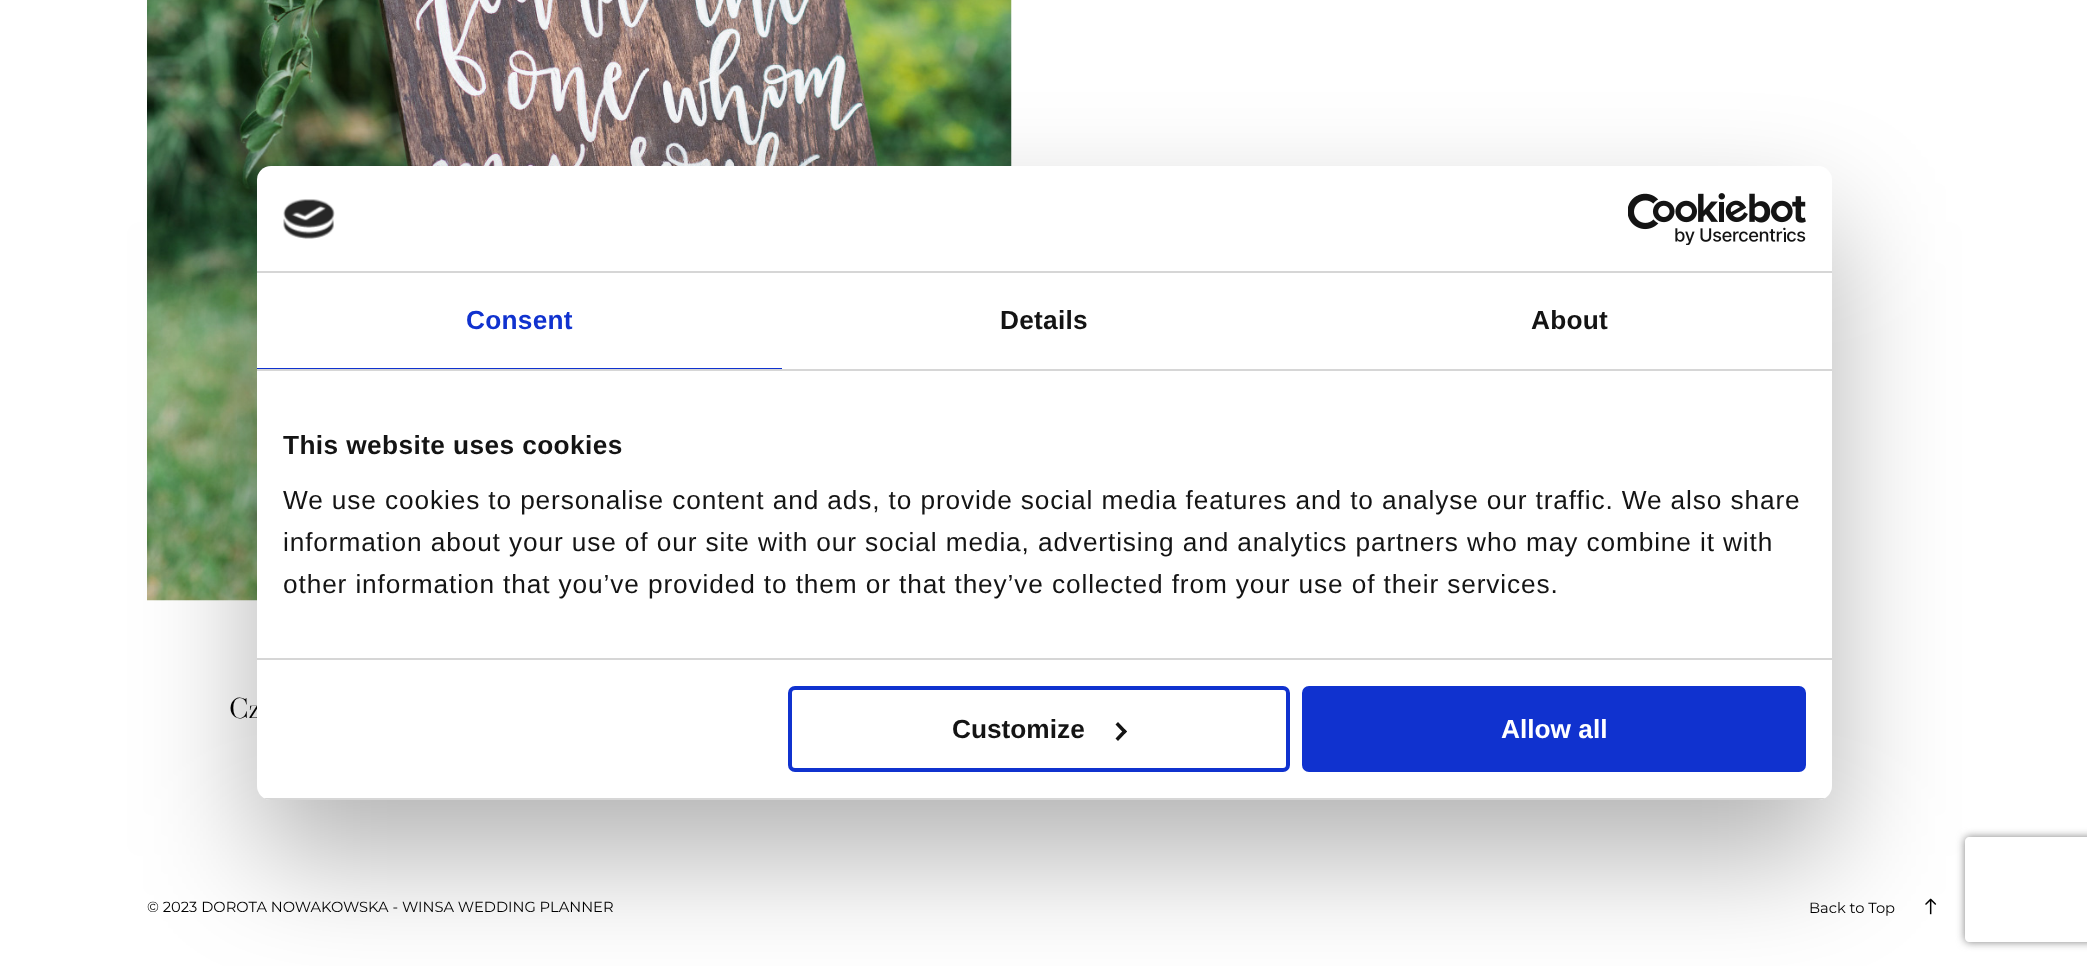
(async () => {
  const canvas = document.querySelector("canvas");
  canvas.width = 2087;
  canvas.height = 966;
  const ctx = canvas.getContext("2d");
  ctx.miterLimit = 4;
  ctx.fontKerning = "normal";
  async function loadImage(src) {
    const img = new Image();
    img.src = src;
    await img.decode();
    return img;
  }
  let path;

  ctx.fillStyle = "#ffffff";
  ctx.fillRect(0, 0, 2087, 966);
  ctx.drawImage(await loadImage("img/1.png"), 147, 0, 865, 601);
  ctx.drawImage(await loadImage("img/4.png"), 1925, 898, 12, 17);
  ctx.fillStyle = "rgba(0, 0, 0, 0.3)";
  ctx.filter = "blur(59.5px)";
  ctx.beginPath();
  ctx.roundRect(257, 222, 1575, 634, 14);
  ctx.fill();
  ctx.filter = "none";
  ctx.save();
  path = new Path2D("M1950 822H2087V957H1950ZM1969 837H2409C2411 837 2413 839 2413 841V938C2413 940 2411 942 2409 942H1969C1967 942 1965 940 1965 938V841C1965 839 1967 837 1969 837Z");
  ctx.clip(path, "evenodd");
  ctx.fillStyle = "#808080";
  ctx.filter = "blur(4.5px)";
  ctx.beginPath();
  ctx.roundRect(1965, 837, 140, 105, 4);
  ctx.fill();
  ctx.filter = "none";
  ctx.restore();
  ctx.font = "29px Libre Caslon Display";
  ctx.fillStyle = "#000000";
  ctx.fillText("Cz", 229, 718);
  ctx.fillStyle = "#ffffff";
  ctx.beginPath();
  ctx.roundRect(257, 166, 1575, 634, 14);
  ctx.fill();
  ctx.fillStyle = "#d6d6d6";
  ctx.fillRect(257, 271, 1575, 2);
  ctx.drawImage(await loadImage("img/2.png"), 283, 199, 52, 40);
  ctx.drawImage(await loadImage("img/3.png"), 1628, 193, 178, 52);
  ctx.fillRect(257, 369, 1575, 2);
  ctx.fillStyle = "#1032cf";
  ctx.fillRect(257, 368, 525, 1);
  ctx.letterSpacing = "0.25px";
  ctx.font = "bold 26.25px Liberation Sans";
  ctx.fillText("Consent", 466, 329);
  ctx.fillStyle = "#141414";
  ctx.fillText("Details", 1000, 329);
  ctx.fillText("About", 1531, 329);
  ctx.fillStyle = "#d6d6d6";
  ctx.fillRect(257, 658, 1575, 2);
  ctx.letterSpacing = "0.4px";
  ctx.fillStyle = "#141414";
  ctx.fillText("This website uses cookies", 283, 454);
  ctx.letterSpacing = "0.88px";
  ctx.font = "26.25px Liberation Sans";
  for (const [text, x, y] of [
    ["We use cookies to personalise content and ads, to provide social media features and to analyse our traffic. We also share", 283, 509],
    ["information about your use of our site with our social media, advertising and analytics partners who may combine it with", 283, 551],
    ["other information that you’ve provided to them or that they’ve collected from your use of their services.", 283, 593],
  ]) {
    ctx.fillText(text, x, y);
  }
  ctx.save();
  ctx.beginPath();
  ctx.roundRect(257, 166, 1575, 634, 14);
  ctx.clip();
  ctx.fillStyle = "#d6d6d6";
  ctx.fillRect(257, 798, 1575, 2);
  ctx.restore();
  ctx.beginPath();
  ctx.roundRect(790, 688, 498, 82, 5);
  ctx.strokeStyle = "#1032cf";
  ctx.lineWidth = 4;
  ctx.stroke();
  ctx.letterSpacing = "0px";
  ctx.font = "bold 26.25px Liberation Sans";
  ctx.fillText("Customize", 952, 738);
  path = new Path2D("M1118 722L1127 731.5L1124.5 734L1115.5 724.5Z");
  ctx.fill(path);
  path = new Path2D("M1124.5 729L1127 731.5L1118 741L1115.5 738.5Z");
  ctx.fill(path);
  ctx.fillStyle = "#1032cf";
  ctx.beginPath();
  ctx.roundRect(1304, 688, 500, 82, 5);
  ctx.fill();
  ctx.stroke();
  ctx.fillStyle = "#ffffff";
  ctx.fillText("Allow all", 1501, 738);
  ctx.font = "14.7px Montserrat";
  ctx.fillStyle = "#000000";
  ctx.fillText("© 2023 DOROTA NOWAKOWSKA - WINSA WEDDING PLANNER", 147, 912);
  ctx.fillText("Back to Top", 1809, 913);
})();
